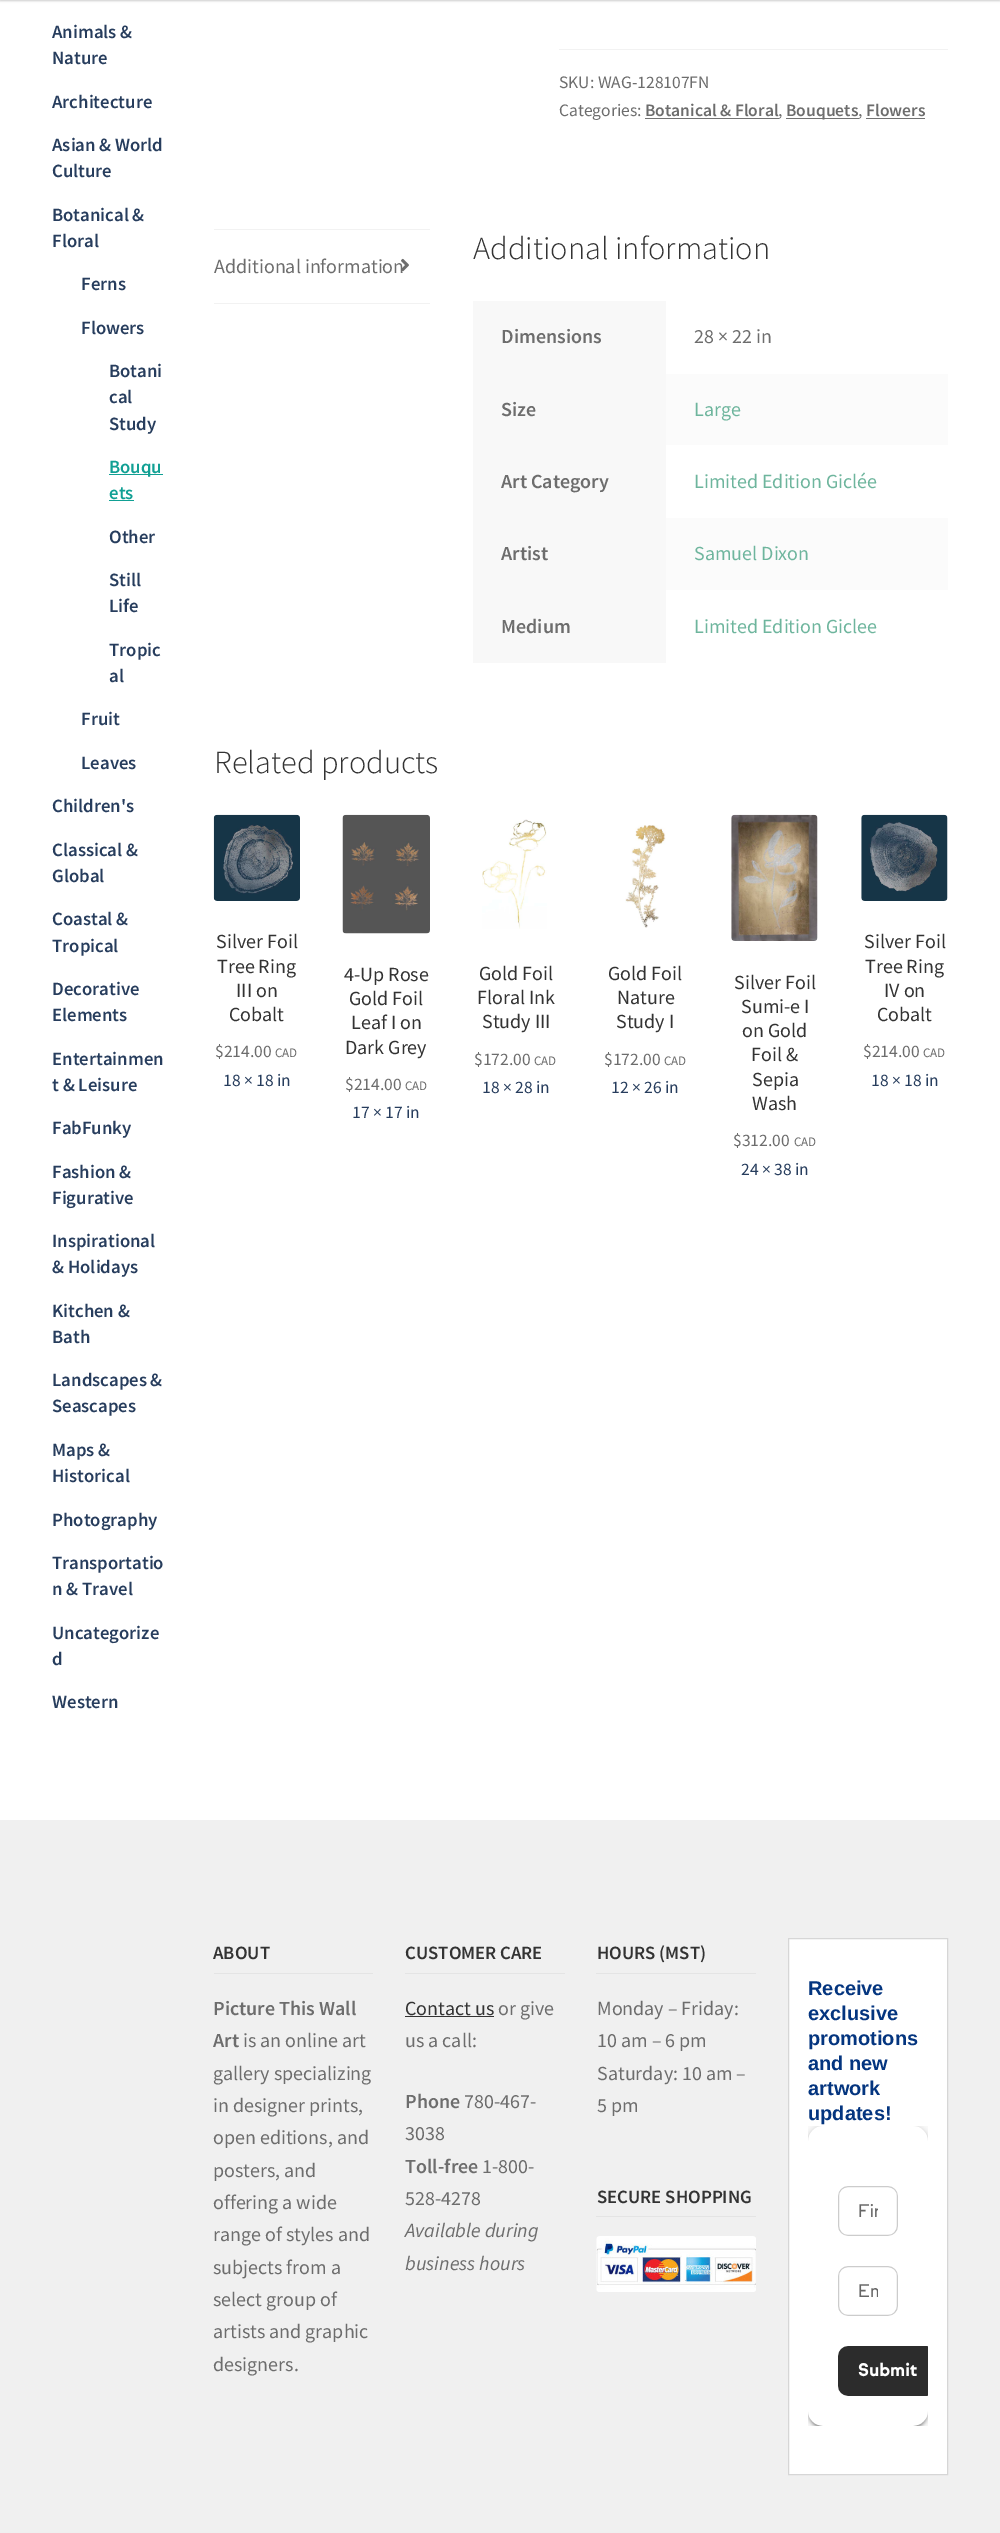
%!PS
<< /PageSize [1000 2533] /PageUsesTransparency true >> setpagedevice
/alpha { dup .setfillconstantalpha .setstrokeconstantalpha } def
/roundrect { 5 dict begin { /r /h /w /y /x } { exch def } forall
  x r add y moveto x w add y 2 copy h add r arct x w add y h add x 1 index r arct
  x y h add x y r arct x y 2 copy exch w add exch r arct closepath end } def
/shadow { 12 dict begin { /a /b /q /h /w /y /x } { exch def } forall gsave /was 0 def
  9 -2 -9 { dup b mul 4 div /e exch def 1 sub .425 mul 2.718 exch exp 1 add a .99 .min exch div /now exch def
    1 1 now sub 1 was sub div sub alpha /was now def
    w h .min e 2 mul add 0 gt { x e sub y e sub w e 2 mul add h e 2 mul add
      q e add b .6 mul add w h .min 2 div e add .min 0 .max roundrect fill } if } for grestore end } def
/picture { 5 dict begin { /h /w /y /x /name } { exch def } forall
  gsave x y translate w h scale
  w h 8 [w 0 0 h 0 0] name (r) file false 3 colorimage grestore end } def
0 .pushpdf14devicefilter
0 2533 translate 1 -1 scale
4 setmiterlimit
1 setgray
0 0 1000 2533 rectfill
0 setgray
0 -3 1000 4 0 1 0.2 shadow
/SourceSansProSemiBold-SemiBold [18.75 0 0 -18.75 0 0] selectfont
0.153 0.239 0.365 setrgbcolor
52 38 moveto (Animals &) show
52 64 moveto (Nature) show
52 108 moveto (Architecture) show
52 151 moveto (Asian & World) show
52 177 moveto (Culture) show
52 221 moveto (Botanical &) show
52 247 moveto (Floral) show
81 290 moveto (Ferns) show
81 334 moveto (Flowers) show
109 377 moveto (Botani) show
109 403 moveto (cal) show
109 430 moveto (Study) show
0.067 0.627 0.58 setrgbcolor
109 474 54 1 rectfill
109 473 moveto (Bouqu) show
109 499 moveto (ets) show
109 500 25 1 rectfill
0.153 0.239 0.365 setrgbcolor
109 543 moveto (Other) show
109 586 moveto (Still) show
109 612 moveto (Life) show
109 656 moveto (Tropic) show
109 682 moveto (al) show
81 725 moveto (Fruit) show
81 769 moveto (Leaves) show
52 812 moveto (Children's) show
52 856 moveto (Classical &) show
52 882 moveto (Global) show
52 925 moveto (Coastal &) show
52 952 moveto (Tropical) show
52 995 moveto (Decorative) show
52 1021 moveto (Elements) show
52 1065 moveto (Entertainmen) show
52 1091 moveto (t & Leisure) show
52 1134 moveto (FabFunky) show
52 1178 moveto (Fashion &) show
52 1204 moveto (Figurative) show
52 1247 moveto (Inspirational) show
52 1273 moveto (& Holidays) show
52 1317 moveto (Kitchen &) show
52 1343 moveto (Bath) show
52 1386 moveto (Landscapes &) show
52 1412 moveto (Seascapes) show
52 1456 moveto (Maps &) show
52 1482 moveto (Historical) show
52 1526 moveto (Photography) show
52 1569 moveto (Transportatio) show
52 1595 moveto (n & Travel) show
52 1639 moveto (Uncategorize) show
52 1665 moveto (d) show
52 1708 moveto (Western) show
0.949 setgray
559 49 389 1 rectfill
/SourceSansPro-Regular [17.5 0 0 -17.5 0 0] selectfont
0.427 setgray
559 88 moveto (SKU: WAG-128107FN) show
559 116 moveto (Categories:) show
/SourceSansProSemiBold-SemiBold [17.5 0 0 -17.5 0 0] selectfont
645 116 moveto (Botanical & Floral) show
0.447 setgray
645 118 134 1 rectfill
/SourceSansPro-Regular [17.5 0 0 -17.5 0 0] selectfont
0.427 setgray
778 116 moveto (,) show
0.447 setgray
786 118 73 1 rectfill
/SourceSansProSemiBold-SemiBold [17.5 0 0 -17.5 0 0] selectfont
0.427 setgray
786 116 moveto (Bouquets) show
/SourceSansPro-Regular [17.5 0 0 -17.5 0 0] selectfont
858 116 moveto (,) show
/SourceSansProSemiBold-SemiBold [17.5 0 0 -17.5 0 0] selectfont
866 116 moveto (Flowers) show
0.447 setgray
866 118 59 1 rectfill
0.949 setgray
214 229 216 1 rectfill
214 303 216 1 rectfill
/SourceSansPro-Regular [20 0 0 -20 0 0] selectfont
0.427 setgray
214 273 moveto (Additional information) show
(img1.rgb) 401 258 8 14 picture
/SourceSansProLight-Light [32.4 0 0 -32.4 0 0] selectfont
0.2 setgray
473 259 moveto (Additional information) show
0.973 setgray
473 301 193 362 rectfill
/SourceSansProSemiBold-SemiBold [20 0 0 -20 0 0] selectfont
0.427 setgray
501 343 moveto (Dimensions) show
/SourceSansPro-Regular [20 0 0 -20 0 0] selectfont
694 343 moveto (28 × 22 in) show
/SourceSansProSemiBold-SemiBold [20 0 0 -20 0 0] selectfont
501 416 moveto (Size) show
0.984 setgray
666 374 282 71 rectfill
/SourceSansPro-Regular [20 0 0 -20 0 0] selectfont
0.431 0.71 0.616 setrgbcolor
694 416 moveto (Large) show
/SourceSansProSemiBold-SemiBold [20 0 0 -20 0 0] selectfont
0.427 setgray
501 488 moveto (Art Category) show
/SourceSansPro-Regular [20 0 0 -20 0 0] selectfont
0.431 0.71 0.616 setrgbcolor
694 488 moveto (Limited Edition Giclée) show
/SourceSansProSemiBold-SemiBold [20 0 0 -20 0 0] selectfont
0.427 setgray
501 560 moveto (Artist) show
0.984 setgray
666 518 282 72 rectfill
/SourceSansPro-Regular [20 0 0 -20 0 0] selectfont
0.431 0.71 0.616 setrgbcolor
694 560 moveto (Samuel Dixon) show
/SourceSansProSemiBold-SemiBold [20 0 0 -20 0 0] selectfont
0.427 setgray
501 633 moveto (Medium) show
/SourceSansPro-Regular [20 0 0 -20 0 0] selectfont
0.431 0.71 0.616 setrgbcolor
694 633 moveto (Limited Edition Giclee) show
/SourceSansProLight-Light [32.4 0 0 -32.4 0 0] selectfont
0.2 setgray
214 773 moveto (Related products) show
(img2.rgb) 213 814 87 87 picture
/SourceSansPro-Regular [20 0 0 -20 0 0] selectfont
216 948 moveto (Silver Foil) show
217 973 moveto (Tree Ring) show
236 997 moveto (III on) show
229 1021 moveto (Cobalt) show
/SourceSansPro-Regular [17.5 0 0 -17.5 0 0] selectfont
0.427 setgray
215 1057 moveto ($214.00) show
/SourceSansPro-Regular [13 0 0 -13 0 0] selectfont
275 1057 moveto (CAD) show
/SourceSansPro-Regular [17.5 0 0 -17.5 0 0] selectfont
0.153 0.239 0.365 setrgbcolor
223 1086 moveto (18 × 18 in) show
(img3.rgb) 342 814 88 120 picture
/SourceSansPro-Regular [20 0 0 -20 0 0] selectfont
0.2 setgray
344 981 moveto (4-Up Rose) show
349 1005 moveto (Gold Foil) show
351 1029 moveto (Leaf I on) show
345 1054 moveto (Dark Grey) show
/SourceSansPro-Regular [17.5 0 0 -17.5 0 0] selectfont
0.427 setgray
345 1090 moveto ($214.00) show
/SourceSansPro-Regular [13 0 0 -13 0 0] selectfont
405 1090 moveto (CAD) show
/SourceSansPro-Regular [17.5 0 0 -17.5 0 0] selectfont
0.153 0.239 0.365 setrgbcolor
352 1118 moveto (17 × 17 in) show
(img4.rgb) 482 819 65 110 picture
/SourceSansPro-Regular [20 0 0 -20 0 0] selectfont
0.2 setgray
479 980 moveto (Gold Foil) show
477 1004 moveto (Floral Ink) show
482 1028 moveto (Study III) show
/SourceSansPro-Regular [17.5 0 0 -17.5 0 0] selectfont
0.427 setgray
474 1065 moveto ($172.00) show
/SourceSansPro-Regular [13 0 0 -13 0 0] selectfont
534 1065 moveto (CAD) show
/SourceSansPro-Regular [17.5 0 0 -17.5 0 0] selectfont
0.153 0.239 0.365 setrgbcolor
482 1093 moveto (18 × 28 in) show
(img5.rgb) 625 825 41 103 picture
/SourceSansPro-Regular [20 0 0 -20 0 0] selectfont
0.2 setgray
608 980 moveto (Gold Foil) show
617 1004 moveto (Nature) show
616 1028 moveto (Study I) show
/SourceSansPro-Regular [17.5 0 0 -17.5 0 0] selectfont
0.427 setgray
604 1065 moveto ($172.00) show
/SourceSansPro-Regular [13 0 0 -13 0 0] selectfont
664 1065 moveto (CAD) show
/SourceSansPro-Regular [17.5 0 0 -17.5 0 0] selectfont
0.153 0.239 0.365 setrgbcolor
611 1093 moveto (12 × 26 in) show
(img6.rgb) 731 814 87 127 picture
/SourceSansPro-Regular [20 0 0 -20 0 0] selectfont
0.2 setgray
734 989 moveto (Silver Foil) show
741 1013 moveto (Sumi-e I) show
742 1037 moveto (on Gold) show
751 1061 moveto (Foil &) show
752 1086 moveto (Sepia) show
752 1110 moveto (Wash) show
/SourceSansPro-Regular [17.5 0 0 -17.5 0 0] selectfont
0.427 setgray
733 1146 moveto ($312.00) show
/SourceSansPro-Regular [13 0 0 -13 0 0] selectfont
794 1146 moveto (CAD) show
/SourceSansPro-Regular [17.5 0 0 -17.5 0 0] selectfont
0.153 0.239 0.365 setrgbcolor
741 1175 moveto (24 × 38 in) show
(img7.rgb) 861 814 87 87 picture
/SourceSansPro-Regular [20 0 0 -20 0 0] selectfont
0.2 setgray
864 948 moveto (Silver Foil) show
865 973 moveto (Tree Ring) show
884 997 moveto (IV on) show
877 1021 moveto (Cobalt) show
/SourceSansPro-Regular [17.5 0 0 -17.5 0 0] selectfont
0.427 setgray
863 1057 moveto ($214.00) show
/SourceSansPro-Regular [13 0 0 -13 0 0] selectfont
923 1057 moveto (CAD) show
/SourceSansPro-Regular [17.5 0 0 -17.5 0 0] selectfont
0.153 0.239 0.365 setrgbcolor
871 1086 moveto (18 × 18 in) show
0.941 setgray
0 1820 1000 713 rectfill
0.894 setgray
214 1973 159 1 rectfill
/SourceSansProSemiBold-SemiBold [18.75 0 0 -18.75 0 0] selectfont
0.2 setgray
213 1959 moveto (ABOUT) show
/SourceSansProSemiBold-SemiBold [20 0 0 -20 0 0] selectfont
0.427 setgray
213 2015 moveto (Picture This Wall) show
213 2047 moveto (Art) show
/SourceSansPro-Regular [20 0 0 -20 0 0] selectfont
243 2047 moveto (is an online art) show
213 2080 moveto (gallery specializing) show
213 2112 moveto (in designer prints,) show
213 2144 moveto (open editions, and) show
213 2177 moveto (posters, and) show
213 2209 moveto (offering a wide) show
213 2241 moveto (range of styles and) show
213 2274 moveto (subjects from a) show
213 2306 moveto (select group of) show
213 2338 moveto (artists and graphic) show
213 2371 moveto (designers.) show
0.894 setgray
405 1973 160 1 rectfill
/SourceSansProSemiBold-SemiBold [18.75 0 0 -18.75 0 0] selectfont
0.2 setgray
405 1959 moveto (CUSTOMER CARE) show
/SourceSansPro-Regular [20 0 0 -20 0 0] selectfont
405 2015 moveto (Contact us) show
405 2016 89 1 rectfill
0.427 setgray
498 2015 moveto (or give) show
405 2047 moveto (us a call:) show
/SourceSansProSemiBold-SemiBold [20 0 0 -20 0 0] selectfont
405 2108 moveto (Phone) show
/SourceSansPro-Regular [20 0 0 -20 0 0] selectfont
464 2108 moveto (780-467-) show
405 2140 moveto (3038) show
/SourceSansProSemiBold-SemiBold [20 0 0 -20 0 0] selectfont
405 2173 moveto (Toll-free) show
/SourceSansPro-Regular [20 0 0 -20 0 0] selectfont
482 2173 moveto (1-800-) show
405 2205 moveto (528-4278) show
/SourceSansPro-Italic [20 0 0 -20 0 0] selectfont
405 2237 moveto (Available during) show
405 2270 moveto (business hours) show
0.894 setgray
596 1973 160 1 rectfill
/SourceSansProSemiBold-SemiBold [18.75 0 0 -18.75 0 0] selectfont
0.2 setgray
597 1959 moveto (HOURS \(MST\)) show
/SourceSansPro-Regular [20 0 0 -20 0 0] selectfont
0.427 setgray
597 2015 moveto (Monday – Friday:) show
597 2047 moveto (10 am – 6 pm) show
597 2080 moveto (Saturday: 10 am –) show
597 2112 moveto (5 pm) show
0.894 setgray
596 2216 160 1 rectfill
/SourceSansProSemiBold-SemiBold [18.75 0 0 -18.75 0 0] selectfont
0.2 setgray
597 2203 moveto (SECURE SHOPPING) show
(img8.rgb) 596 2236 160 56 picture
1 setgray
newpath 788.5 1938.5 moveto 947.5 1938.5 lineto 947.5 2474.5 lineto 788.5 2474.5 lineto closepath gsave fill grestore
0.839 setgray
stroke
/LiberationSans-Bold [20 0 0 -20 0 0] selectfont
0.016 0.208 0.498 setrgbcolor
808 1995 moveto (Receive) show
808 2020 moveto (exclusive) show
808 2045 moveto (promotions) show
808 2070 moveto (and new) show
808 2095 moveto (artwork) show
808 2120 moveto (updates!) show
(img9.rgb) 808 2126 120 300 picture
.poppdf14devicefilter showpage
